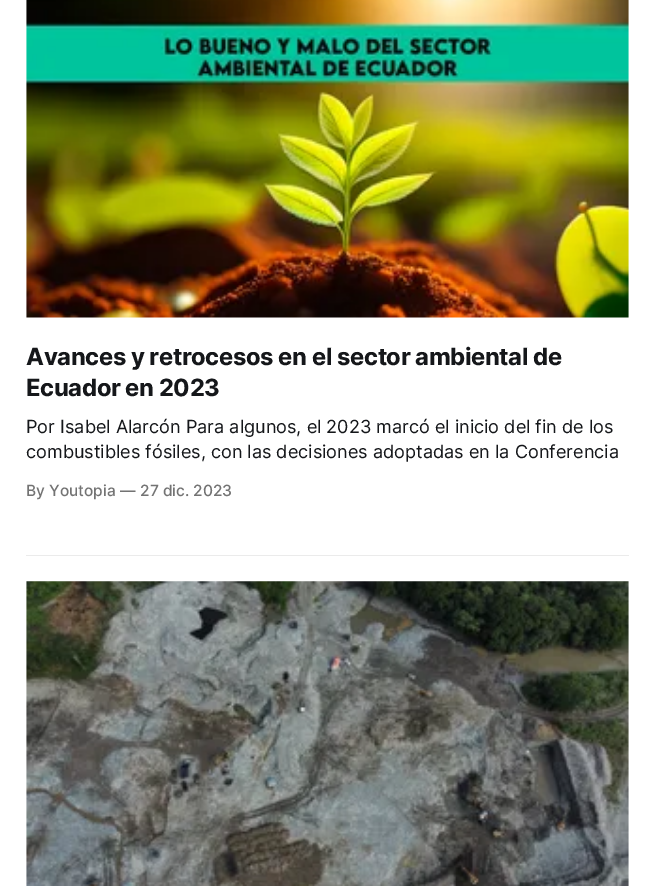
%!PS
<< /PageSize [654 886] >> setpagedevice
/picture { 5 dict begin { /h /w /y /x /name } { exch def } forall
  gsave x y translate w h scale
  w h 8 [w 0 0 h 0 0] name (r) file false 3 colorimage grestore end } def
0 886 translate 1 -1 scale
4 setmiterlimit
1 setgray
0 0 654 886 rectfill
(img1.rgb) 26 0 603 318 picture
/Inter-Bold [23.75 0 0 -23.75 0 0] selectfont
0.082 0.09 0.102 setrgbcolor
26 365 moveto -0.35 0 (Avances y retrocesos en el sector ambiental de) ashow
26 396 moveto -0.35 0 (Ecuador en 2023) ashow
/Inter-Regular [18.1 0 0 -18.1 0 0] selectfont
26 433 moveto (Por Isabel Alarcón Para algunos, el 2023 marcó el inicio del fin de los) show
26 458 moveto (combustibles fósiles, con las decisiones adoptadas en la Conferencia) show
/Inter-Medium [15.5 0 0 -15.5 0 0] selectfont
0.451 setgray
26 496 moveto (By Youtopia —) show
140 496 moveto (27 dic. 2023) show
0.922 setgray
26 555 603 1 rectfill
(img2.rgb) 26 581 603 305 picture
showpage
